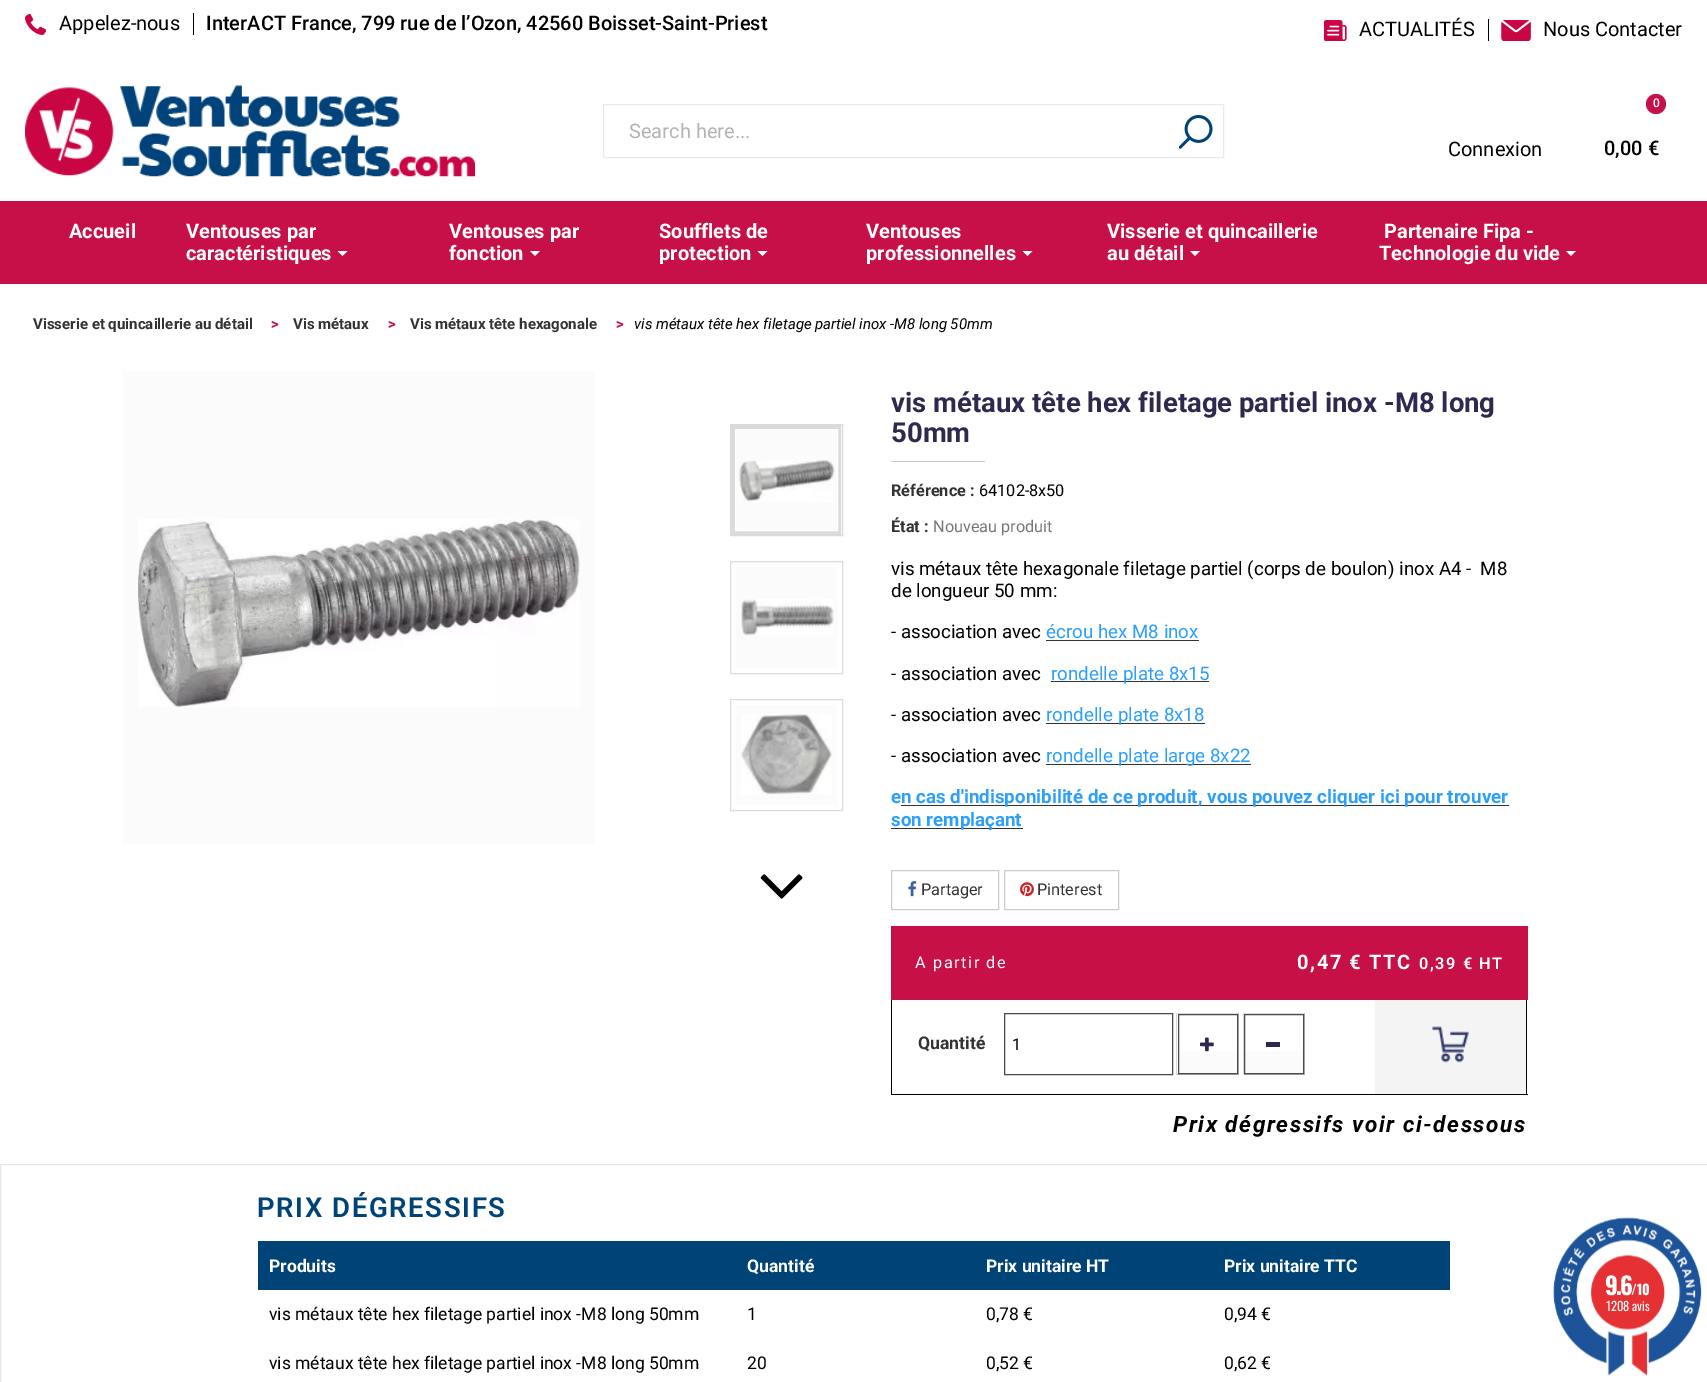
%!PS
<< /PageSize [1707 1382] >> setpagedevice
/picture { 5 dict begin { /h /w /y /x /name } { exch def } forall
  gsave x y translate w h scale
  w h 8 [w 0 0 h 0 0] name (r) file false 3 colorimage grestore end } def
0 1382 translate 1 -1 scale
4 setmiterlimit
1 setgray
0 0 1707 1382 rectfill
0 setgray
193 13 1 22 rectfill
(img1.rgb) 25 14 21 21 picture
/Roboto-Regular [20 0 0 -20 0 0] selectfont
59 30 moveto (Appelez-nous) show
/Roboto-Medium [20 0 0 -20 0 0] selectfont
206 30 moveto (InterACT France, 799 rue de l’Ozon, 42560 Boisset-Saint-Priest) show
1488 19 1 22 rectfill
(img2.rgb) 1324 20 23 21 picture
/Roboto-Regular [20 0 0 -20 0 0] selectfont
1359 36 moveto (ACTUALITÉS) show
(img3.rgb) 1501 20 30 21 picture
1543 36 moveto (Nous Contacter) show
(img4.rgb) 25 85 450 92 picture
0.918 setgray
603.5 104.5 620 53 rectstroke
0.702 setgray
629 138 moveto (Search here...) show
(img5.rgb) 1179 115 34 34 picture
0 setgray
1448 156 moveto (Connexion) show
0.776 0.063 0.278 setrgbcolor
newpath 1656 104 10 0 360 arc closepath fill
/Roboto-Medium [12 0 0 -12 0 0] selectfont
1 setgray
1653 107 moveto (0) show
/Roboto-Medium [20 0 0 -20 0 0] selectfont
0 setgray
1604 155 moveto (0,00 €) show
0.776 0.063 0.278 setrgbcolor
0 201 1707 83 rectfill
/Roboto-Bold [20 0 0 -20 0 0] selectfont
1 setgray
69 238 moveto (Accueil) show
186 238 moveto (Ventouses par) show
186 260 moveto (caractéristiques) show
newpath 337.5 251 moveto 347.5 251 lineto 342.5 256 lineto closepath fill
449 238 moveto (Ventouses par) show
449 260 moveto (fonction) show
newpath 530 251 moveto 540 251 lineto 535 256 lineto closepath fill
659 238 moveto (Soufflets de) show
659 260 moveto (protection) show
newpath 757.5 251 moveto 767.5 251 lineto 762.5 256 lineto closepath fill
866 238 moveto (Ventouses) show
866 260 moveto (professionnelles) show
newpath 1022.5 251 moveto 1032.5 251 lineto 1027.5 256 lineto closepath fill
1107 238 moveto (Visserie et quincaillerie) show
1107 260 moveto (au détail) show
newpath 1190 251 moveto 1200 251 lineto 1195 256 lineto closepath fill
1384 238 moveto (Partenaire Fipa -) show
1379 260 moveto (Technologie du vide) show
newpath 1566 251 moveto 1576 251 lineto 1571 256 lineto closepath fill
/Roboto-Bold [15 0 0 -15 0 0] selectfont
0.2 setgray
33 329 moveto (Visserie et quincaillerie au détail) show
0.776 0.063 0.278 setrgbcolor
271 329 moveto (>) show
0.2 setgray
293 329 moveto (Vis métaux) show
0.776 0.063 0.278 setrgbcolor
388 329 moveto (>) show
0.2 setgray
410 329 moveto (Vis métaux tête hexagonale) show
0.776 0.063 0.278 setrgbcolor
616 329 moveto (>) show
/Roboto-Italic [15 0 0 -15 0 0] selectfont
0 setgray
634 329 moveto (vis métaux tête hex filetage partiel inox -M8 long 50mm) show
0.984 setgray
123 371 472 473 rectfill
(img6.rgb) 138 519 442 188 picture
0.859 setgray
730.5 424.5 112 111 rectstroke
0.984 setgray
736 430 101 100 rectfill
0.859 setgray
4 setlinewidth
733 427 106 106 rectstroke
1 setgray
1 setlinewidth
735.5 429.5 102 101 rectstroke
(img7.rgb) 738 460 97 42 picture
0.859 setgray
730.5 561.5 112 112 rectstroke
0.984 setgray
736 567 101 101 rectfill
(img8.rgb) 741 599 93 37 picture
0.859 setgray
730.5 699.5 112 111 rectstroke
0.984 setgray
736 705 101 100 rectfill
(img9.rgb) 741 714 91 81 picture
(img10.rgb) 760 874 43 25 picture
/Roboto-Bold [27.5 0 0 -27.5 0 0] selectfont
0.184 0.161 0.31 setrgbcolor
891 412 moveto (vis métaux tête hex filetage partiel inox -M8 long) show
891 442 moveto (50mm) show
0.8 setgray
891 461 94 1 rectfill
/Roboto-Bold [16.25 0 0 -16.25 0 0] selectfont
0.2 setgray
891 496 moveto (Référence :) show
/Roboto-Regular [16.25 0 0 -16.25 0 0] selectfont
0 setgray
979 496 moveto (64102-8x50) show
/Roboto-Bold [16.25 0 0 -16.25 0 0] selectfont
0.2 setgray
891 532 moveto (État :) show
/Roboto-Regular [16.25 0 0 -16.25 0 0] selectfont
0.467 setgray
933 532 moveto (Nouveau produit) show
/Roboto-Regular [18.75 0 0 -18.75 0 0] selectfont
0 setgray
891 575 moveto (vis métaux tête hexagonale filetage partiel \(corps de boulon\) inox A4 -  M8) show
891 597 moveto (de longueur 50 mm:) show
891 638 moveto (- association avec) show
0.173 0.624 0.992 setrgbcolor
1046 638 moveto (écrou hex M8 inox) show
0.2 setgray
1046 640 153 1 rectfill
0 setgray
891 680 moveto (- association avec) show
0.2 setgray
1051 681 158 1 rectfill
0.173 0.624 0.992 setrgbcolor
1051 680 moveto (rondelle plate 8x15) show
0 setgray
891 721 moveto (- association avec) show
0.2 setgray
1046 723 159 1 rectfill
0.173 0.624 0.992 setrgbcolor
1046 721 moveto (rondelle plate 8x18) show
0 setgray
891 762 moveto (- association avec) show
0.2 setgray
1046 764 205 1 rectfill
0.173 0.624 0.992 setrgbcolor
1046 762 moveto (rondelle plate large 8x22) show
/Roboto-Bold [18.75 0 0 -18.75 0 0] selectfont
891 803 moveto (e) show
0.2 setgray
901 805 608 1 rectfill
0.173 0.624 0.992 setrgbcolor
901 803 moveto (n cas d'indisponibilité de ce produit, vous pouvez cliquer ici pour trouver) show
0.2 setgray
891 828 132 1 rectfill
0.173 0.624 0.992 setrgbcolor
891 826 moveto (son remplaçant) show
0.8 setgray
891.5 870.5 107 39 rectstroke
(img11.rgb) 908 881 9 16 picture
/Roboto-Regular [16.25 0 0 -16.25 0 0] selectfont
0.2 setgray
921 895 moveto (Partager) show
0.8 setgray
1004.5 870.5 114 39 rectstroke
(img12.rgb) 1020 882 14 15 picture
0.2 setgray
1037 895 moveto (Pinterest) show
0.776 0.063 0.275 setrgbcolor
891 926 637 74 rectfill
1 setgray
915 968 moveto 1.6 0 (A partir de) ashow
/Roboto-Bold [20 0 0 -20 0 0] selectfont
1297 969 moveto 1.6 0 (0,47 € TTC) ashow
/Roboto-SemiBold [16.25 0 0 -16.25 0 0] selectfont
1419 969 moveto 1.6 0 (0,39 € HT) ashow
0 setgray
1526 1000 1 95 rectfill
891 1094 637 1 rectfill
891 1000 1 95 rectfill
/Roboto-Bold [17.5 0 0 -17.5 0 0] selectfont
0.2 setgray
918 1049 moveto (Quantité) show
0.29 setgray
1004.5 1013.5 168 61 rectstroke
/Roboto-Regular [16.25 0 0 -16.25 0 0] selectfont
0 setgray
1012 1050 moveto (1) show
0.871 0.863 0.863 setrgbcolor
1176 1013 63 1 rectfill
0.757 0.749 0.749 setrgbcolor
1238 1013 1 62 rectfill
0.71 0.706 0.706 setrgbcolor
1176 1074 63 1 rectfill
0.855 0.847 0.847 setrgbcolor
1176 1013 1 62 rectfill
gsave newpath 1179 1051 moveto 1237 1051 lineto 1237 1073 lineto 1179 1073 lineto closepath clip newpath
<< /ShadingType 2 /ColorSpace /DeviceRGB /Coords [1208 1015 1208 1073] /Extend [true true] /Function << /FunctionType 2 /Domain [0 1] /C0 [1 1 1] /C1 [0.984 0.984 0.984] /N 1 >> >> shfill grestore
0.29 setgray
1178.5 1014.5 59 59 rectstroke
(img13.rgb) 1200 1037 14 15 picture
0.871 0.863 0.863 setrgbcolor
1243 1013 62 1 rectfill
0.757 0.749 0.749 setrgbcolor
1304 1013 1 62 rectfill
0.71 0.706 0.706 setrgbcolor
1243 1074 62 1 rectfill
0.855 0.847 0.847 setrgbcolor
1243 1013 1 62 rectfill
gsave newpath 1245 1051 moveto 1303 1051 lineto 1303 1073 lineto 1245 1073 lineto closepath clip newpath
<< /ShadingType 2 /ColorSpace /DeviceRGB /Coords [1274 1015 1274 1073] /Extend [true true] /Function << /FunctionType 2 /Domain [0 1] /C0 [1 1 1] /C1 [0.984 0.984 0.984] /N 1 >> >> shfill grestore
0.29 setgray
1244.5 1014.5 59 59 rectstroke
0.184 0.157 0.318 setrgbcolor
1266 1042 14 5 rectfill
0.957 setgray
1375 1000 151 94 rectfill
(img14.rgb) 1432 1026 37 37 picture
/Roboto-BoldItalic [22.5 0 0 -22.5 0 0] selectfont
0 setgray
1173 1132 moveto 1.6 0 (Prix dégressifs voir ci-dessous) ashow
0.902 setgray
0.5 1164.5 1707 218 rectstroke
/Roboto-SemiBold [27.5 0 0 -27.5 0 0] selectfont
0 0.263 0.467 setrgbcolor
257 1217 moveto 1.6 0 (PRIX DÉGRESSIFS) ashow
258 1241 1192 49 rectfill
/Roboto-Bold [17.5 0 0 -17.5 0 0] selectfont
1 setgray
269 1272 moveto (Produits) show
747 1272 moveto (Quantité) show
986 1272 moveto (Prix unitaire HT) show
1224 1272 moveto (Prix unitaire TTC) show
/Roboto-Regular [17.5 0 0 -17.5 0 0] selectfont
0 setgray
269 1320 moveto (vis métaux tête hex filetage partiel inox -M8 long 50mm) show
747 1320 moveto (1) show
986 1320 moveto (0,78 €) show
1224 1320 moveto (0,94 €) show
269 1369 moveto (vis métaux tête hex filetage partiel inox -M8 long 50mm) show
747 1369 moveto (20) show
986 1369 moveto (0,52 €) show
1224 1369 moveto (0,62 €) show
(img15.rgb) 1553 1217 149 159 picture
/Oswald-Bold [24 0 0 -24 0 0] selectfont
1 setgray
1605 1295 moveto -2 0 (9.6) ashow
/Oswald-Bold [14 0 0 -14 0 0] selectfont
1631 1295 moveto (/10) show
/Oswald-Regular [12.5 0 0 -12.5 0 0] selectfont
1606 1311 moveto (1208 avis) show
showpage
